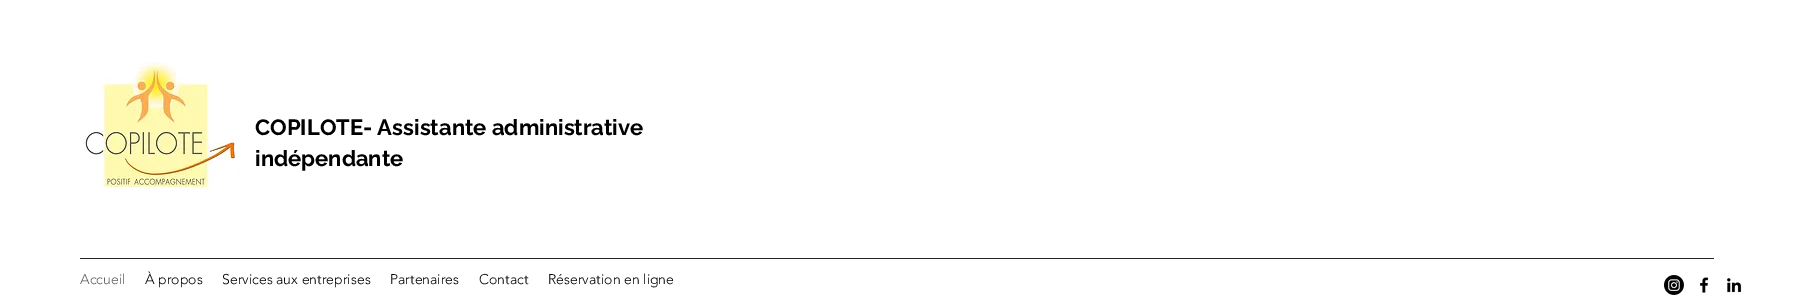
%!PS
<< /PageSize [1794 303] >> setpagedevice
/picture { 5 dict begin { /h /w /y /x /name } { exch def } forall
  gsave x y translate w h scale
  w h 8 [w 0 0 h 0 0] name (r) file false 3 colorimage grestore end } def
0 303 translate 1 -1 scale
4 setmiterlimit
1 setgray
0 0 1794 303 rectfill
(img1.rgb) 84 62 156 127 picture
/Raleway-Bold [22 0 0 -22 0 0] selectfont
0 setgray
255 135 moveto (COPILOTE- Assistante administrative) show
255 166 moveto (indépendante) show
0.149 setgray
80 258 1634 1 rectfill
/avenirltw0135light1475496-Light [14 0 0 -14 0 0] selectfont
0.392 0.373 0.369 setrgbcolor
80 284 moveto (Accueil) show
0 setgray
145 284 moveto (À propos) show
222 284 moveto (Services aux entreprises) show
390 284 moveto (Partenaires) show
479 284 moveto (Contact) show
548 284 moveto (Réservation en ligne) show
(img2.rgb) 1664 275 20 20 picture
(img3.rgb) 1700 277 9 16 picture
(img4.rgb) 1727 278 15 15 picture
showpage
